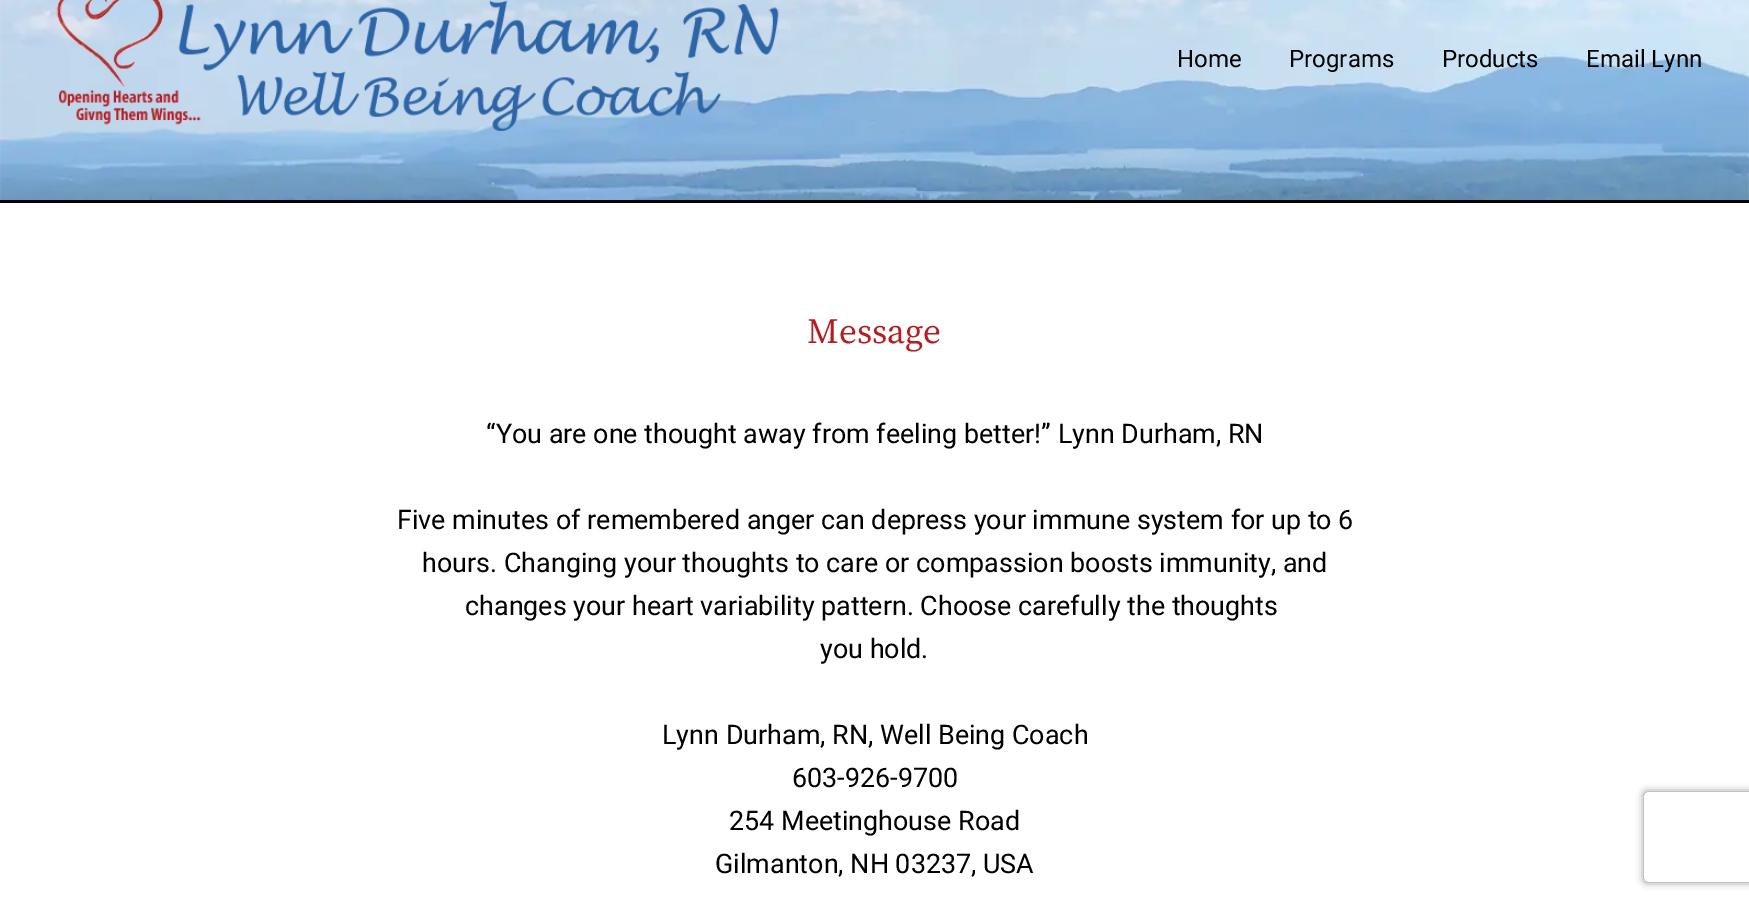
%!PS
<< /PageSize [1749 902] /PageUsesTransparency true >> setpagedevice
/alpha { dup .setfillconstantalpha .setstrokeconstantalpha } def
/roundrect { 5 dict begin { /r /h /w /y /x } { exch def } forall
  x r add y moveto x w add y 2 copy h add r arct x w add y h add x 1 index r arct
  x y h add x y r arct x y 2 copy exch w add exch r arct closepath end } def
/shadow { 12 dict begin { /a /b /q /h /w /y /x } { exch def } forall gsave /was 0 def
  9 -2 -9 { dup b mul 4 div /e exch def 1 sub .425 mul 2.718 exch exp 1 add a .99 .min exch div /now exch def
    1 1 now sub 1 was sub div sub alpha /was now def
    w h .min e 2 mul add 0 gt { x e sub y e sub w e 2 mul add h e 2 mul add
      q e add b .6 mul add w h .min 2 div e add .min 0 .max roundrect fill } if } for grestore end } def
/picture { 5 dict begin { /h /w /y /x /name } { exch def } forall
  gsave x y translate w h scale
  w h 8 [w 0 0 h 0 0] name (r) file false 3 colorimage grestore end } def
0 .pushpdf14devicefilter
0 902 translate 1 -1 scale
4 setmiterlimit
1 setgray
0 0 1749 902 rectfill
(img1.rgb) 0 0 1749 200 picture
0 setgray
0 200 1749 3 rectfill
(img2.rgb) 56 0 723 131 picture
/Roboto-Regular [24 0 0 -24 0 0] selectfont
1177 67 moveto (Home) show
1289 67 moveto (Programs) show
1442 67 moveto (Products) show
1586 67 moveto (Email Lynn) show
/SourceSerif4-Regular [35.5 0 0 -35.5 0 0] selectfont
0.706 0.114 0.133 setrgbcolor
807 343 moveto (Message) show
/Roboto-Regular [26.9 0 0 -26.9 0 0] selectfont
0 setgray
486 443 moveto (“You are one thought away from feeling better!” Lynn Durham, RN) show
397 529 moveto (Five minutes of remembered anger can depress your immune system for up to 6) show
422 572 moveto (hours. Changing your thoughts to care or compassion boosts immunity, and) show
465 615 moveto (changes your heart variability pattern. Choose carefully the thoughts) show
820 658 moveto (you hold.) show
662 744 moveto (Lynn Durham, RN, Well Being Coach) show
792 787 moveto (603-926-9700) show
729 830 moveto (254 Meetinghouse Road) show
715 873 moveto (Gilmanton, NH 03237, USA) show
gsave
newpath 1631 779 moveto 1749 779 lineto 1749 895 lineto 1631 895 lineto closepath 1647 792 moveto 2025 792 lineto 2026.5 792 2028 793.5 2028 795 curveto 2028 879 lineto 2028 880.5 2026.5 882 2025 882 curveto 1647 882 lineto 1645.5 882 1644 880.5 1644 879 curveto 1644 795 lineto 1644 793.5 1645.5 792 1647 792 curveto closepath eoclip newpath
0.502 setgray
1644 792 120 90 3 4 1 shadow
grestore
.poppdf14devicefilter showpage
